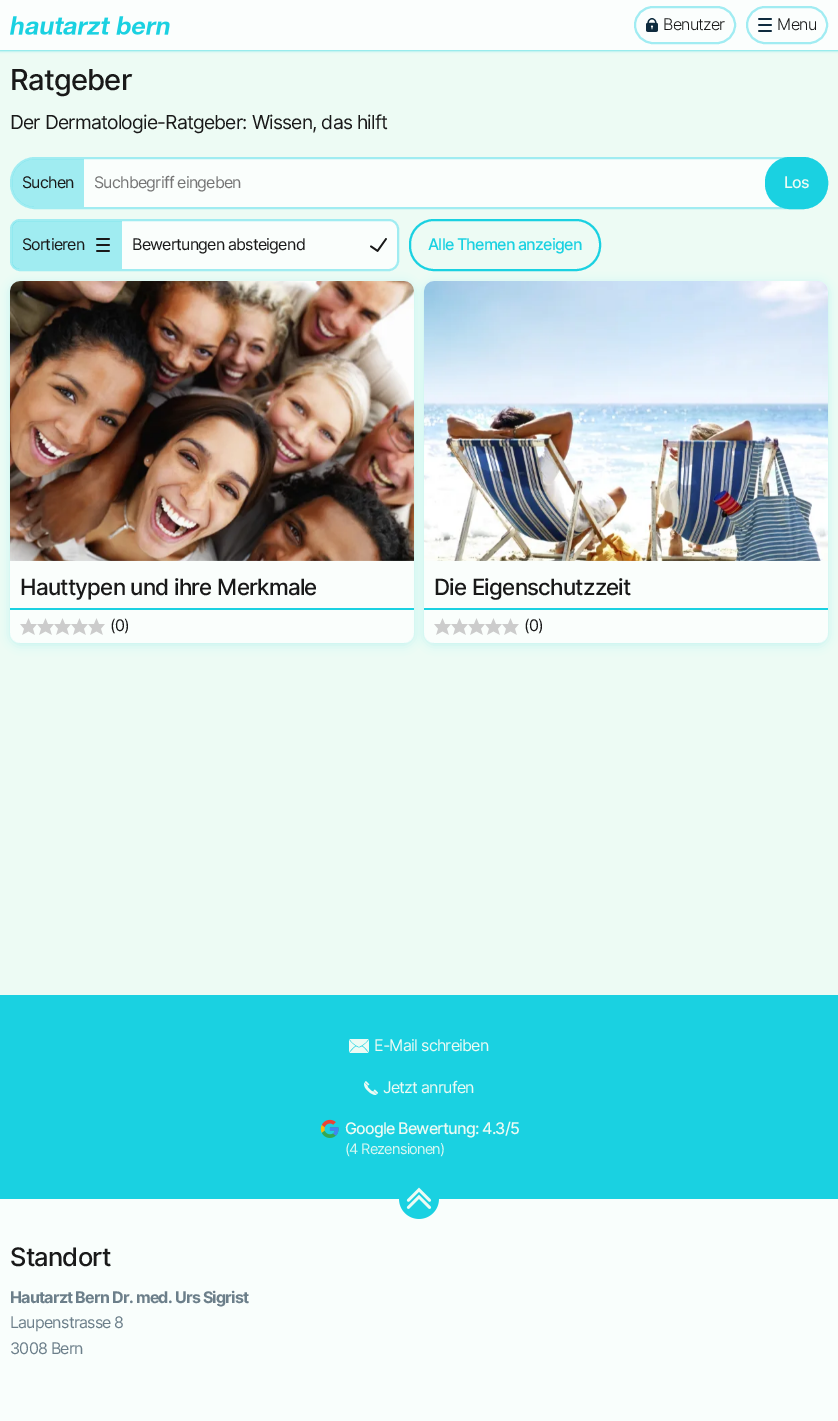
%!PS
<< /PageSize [838 1421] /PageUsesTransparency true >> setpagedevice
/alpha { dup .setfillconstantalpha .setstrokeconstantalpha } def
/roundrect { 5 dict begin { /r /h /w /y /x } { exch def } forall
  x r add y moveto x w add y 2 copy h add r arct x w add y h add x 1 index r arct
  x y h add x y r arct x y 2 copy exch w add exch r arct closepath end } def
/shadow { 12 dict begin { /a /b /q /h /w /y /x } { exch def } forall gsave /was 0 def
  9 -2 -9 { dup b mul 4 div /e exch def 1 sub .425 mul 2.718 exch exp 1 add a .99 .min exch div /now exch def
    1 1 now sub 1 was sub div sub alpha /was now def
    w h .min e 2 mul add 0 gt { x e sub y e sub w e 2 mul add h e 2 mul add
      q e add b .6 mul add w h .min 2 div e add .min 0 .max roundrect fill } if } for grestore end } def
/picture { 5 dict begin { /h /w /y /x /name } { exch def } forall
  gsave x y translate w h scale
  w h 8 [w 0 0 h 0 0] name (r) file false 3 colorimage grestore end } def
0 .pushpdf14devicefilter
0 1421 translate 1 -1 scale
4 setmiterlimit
0.929 0.984 0.957 setrgbcolor
0 0 838 1421 rectfill
0.102 0.82 0.882 setrgbcolor
0 0 838 50 0 1.5 1 shadow
0.984 0.996 0.992 setrgbcolor
0 0 838 50 rectfill
(img1.rgb) 10 16 160 19 picture
0.631 0.925 0.949 setrgbcolor
2 setlinewidth
635 7 100 36 18 roundrect stroke
(img2.rgb) 646 18 12 14 picture
/Inter-Light [16 0 0 -16 0 0] selectfont
0.098 setgray
663 30 moveto -0.8 0 (Benutzer) ashow
0.631 0.925 0.949 setrgbcolor
747 7 80 36 18 roundrect stroke
(img3.rgb) 758 18 14 14 picture
0.098 setgray
777 30 moveto -0.8 0 (Menu) ashow
/Inter-Medium [29 0 0 -29 0 0] selectfont
10 90 moveto -0.8 0 (Ratgeber) ashow
/Inter-Regular [19.25 0 0 -19.25 0 0] selectfont
10 129 moveto -0.8 0 (Der Dermatologie-Ratgeber: Wissen, das hilft) ashow
0.98 0.996 0.988 setrgbcolor
10 157 818 52 25 roundrect fill
0.4 alpha
0.102 0.82 0.882 setrgbcolor
11 158 816 50 24 roundrect stroke
newpath 35 159 moveto 84 159 lineto 84 207 lineto 35 207 lineto 22.5 207 12 196.5 12 184 curveto 12 182 lineto 12 169.5 22.5 159 35 159 curveto closepath fill
/Inter-Regular [16 0 0 -16 0 0] selectfont
1 alpha
0.098 setgray
22 188 moveto -0.8 0 (Suchen) ashow
0.459 setgray
94 188 moveto -0.8 0 (Suchbegriff eingeben) ashow
0.102 0.82 0.882 setrgbcolor
766 158 61 50 24 roundrect gsave fill grestore
stroke
/Inter-Medium [16 0 0 -16 0 0] selectfont
0.929 0.984 0.957 setrgbcolor
784 188 moveto -0.8 0 (Los) ashow
0.98 0.996 0.988 setrgbcolor
10 219 389 52 10 roundrect fill
0.4 alpha
0.102 0.82 0.882 setrgbcolor
11 220 387 50 9 roundrect stroke
newpath 20 221 moveto 122 221 lineto 122 269 lineto 20 269 lineto 15.5 269 12 265.5 12 261 curveto 12 229 lineto 12 224.5 15.5 221 20 221 curveto closepath fill
/Inter-Regular [16 0 0 -16 0 0] selectfont
1 alpha
0.098 setgray
22 250 moveto -0.8 0 (Sortieren) ashow
(img4.rgb) 96 238 14 14 picture
132 250 moveto -0.8 0 (Bewertungen absteigend) ashow
(img5.rgb) 370 238 17 14 picture
0.102 0.82 0.882 setrgbcolor
410 220 190 50 24 roundrect stroke
/Inter-Medium [16 0 0 -16 0 0] selectfont
428 250 moveto -0.8 0 (Alle Themen anzeigen) ashow
gsave
newpath 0 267 moveto 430 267 lineto 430 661 lineto 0 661 lineto closepath 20 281 moveto 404 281 lineto 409.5 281 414 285.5 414 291 curveto 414 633 lineto 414 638.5 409.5 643 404 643 curveto 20 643 lineto 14.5 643 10 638.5 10 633 curveto 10 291 lineto 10 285.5 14.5 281 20 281 curveto closepath eoclip newpath
10 283 404 362 10 5 0.2 shadow
grestore
0.7 alpha
1 setgray
10 281 404 362 10 roundrect fill
0.1 alpha
0.102 0.82 0.882 setrgbcolor
newpath 20 281 moveto 404 281 lineto 409.5 281 414 285.5 414 291 curveto 414 561 lineto 10 561 lineto 10 291 lineto 10 285.5 14.5 281 20 281 curveto closepath fill
1 alpha
(img6.rgb) 10 281 404 280 picture
/Inter-Medium [22.4 0 0 -22.4 0 0] selectfont
0.098 setgray
20 595 moveto -0.8 0 (Hauttypen und ihre Merkmale) ashow
0.102 0.82 0.882 setrgbcolor
10 608 404 2 rectfill
(img7.rgb) 20 618 85 17 picture
/Inter-Regular [16 0 0 -16 0 0] selectfont
0.098 setgray
110 631 moveto -0.8 0 (\(0\)) ashow
gsave
newpath 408 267 moveto 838 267 lineto 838 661 lineto 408 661 lineto closepath 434 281 moveto 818 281 lineto 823.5 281 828 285.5 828 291 curveto 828 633 lineto 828 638.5 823.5 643 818 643 curveto 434 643 lineto 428.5 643 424 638.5 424 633 curveto 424 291 lineto 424 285.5 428.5 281 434 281 curveto closepath eoclip newpath
0.102 0.82 0.882 setrgbcolor
424 283 404 362 10 5 0.2 shadow
grestore
0.7 alpha
1 setgray
424 281 404 362 10 roundrect fill
0.1 alpha
0.102 0.82 0.882 setrgbcolor
newpath 434 281 moveto 818 281 lineto 823.5 281 828 285.5 828 291 curveto 828 561 lineto 424 561 lineto 424 291 lineto 424 285.5 428.5 281 434 281 curveto closepath fill
1 alpha
(img8.rgb) 424 281 404 280 picture
/Inter-Medium [22.4 0 0 -22.4 0 0] selectfont
0.098 setgray
434 595 moveto -0.8 0 (Die Eigenschutzzeit) ashow
0.102 0.82 0.882 setrgbcolor
424 608 404 2 rectfill
(img7.rgb) 434 618 85 17 picture
/Inter-Regular [16 0 0 -16 0 0] selectfont
0.098 setgray
524 631 moveto -0.8 0 (\(0\)) ashow
0.102 0.82 0.882 setrgbcolor
0 995 838 204 rectfill
(img9.rgb) 349 1039 20 14 picture
0.929 0.984 0.957 setrgbcolor
374 1051 moveto -0.8 0 (E-Mail schreiben) ashow
(img10.rgb) 364 1081 14 14 picture
383 1093 moveto -0.8 0 (Jetzt anrufen) ashow
(img11.rgb) 320 1119 19 19 picture
/Inter-Medium [16 0 0 -16 0 0] selectfont
345 1134 moveto -0.8 0 (Google Bewertung: 4.3/5) ashow
/Inter-Regular [14.5 0 0 -14.5 0 0] selectfont
0.847 0.969 0.949 setrgbcolor
345 1154 moveto -0.8 0 (\(4 Rezensionen\)) ashow
0.976 0.996 0.988 setrgbcolor
0 1199 838 222 rectfill
(img12.rgb) 399 1187 40 32 picture
/Inter-Medium [25.5 0 0 -25.5 0 0] selectfont
0.098 setgray
10 1266 moveto -0.8 0 (Standort) ashow
/Inter-Bold [16 0 0 -16 0 0] selectfont
0.424 0.498 0.541 setrgbcolor
10 1303 moveto -0.8 0 (Hautarzt Bern Dr. med. Urs Sigrist) ashow
/Inter-Regular [16 0 0 -16 0 0] selectfont
10 1328 moveto -0.8 0 (Laupenstrasse 8) ashow
10 1354 moveto -0.8 0 (3008 Bern) ashow
.poppdf14devicefilter showpage
